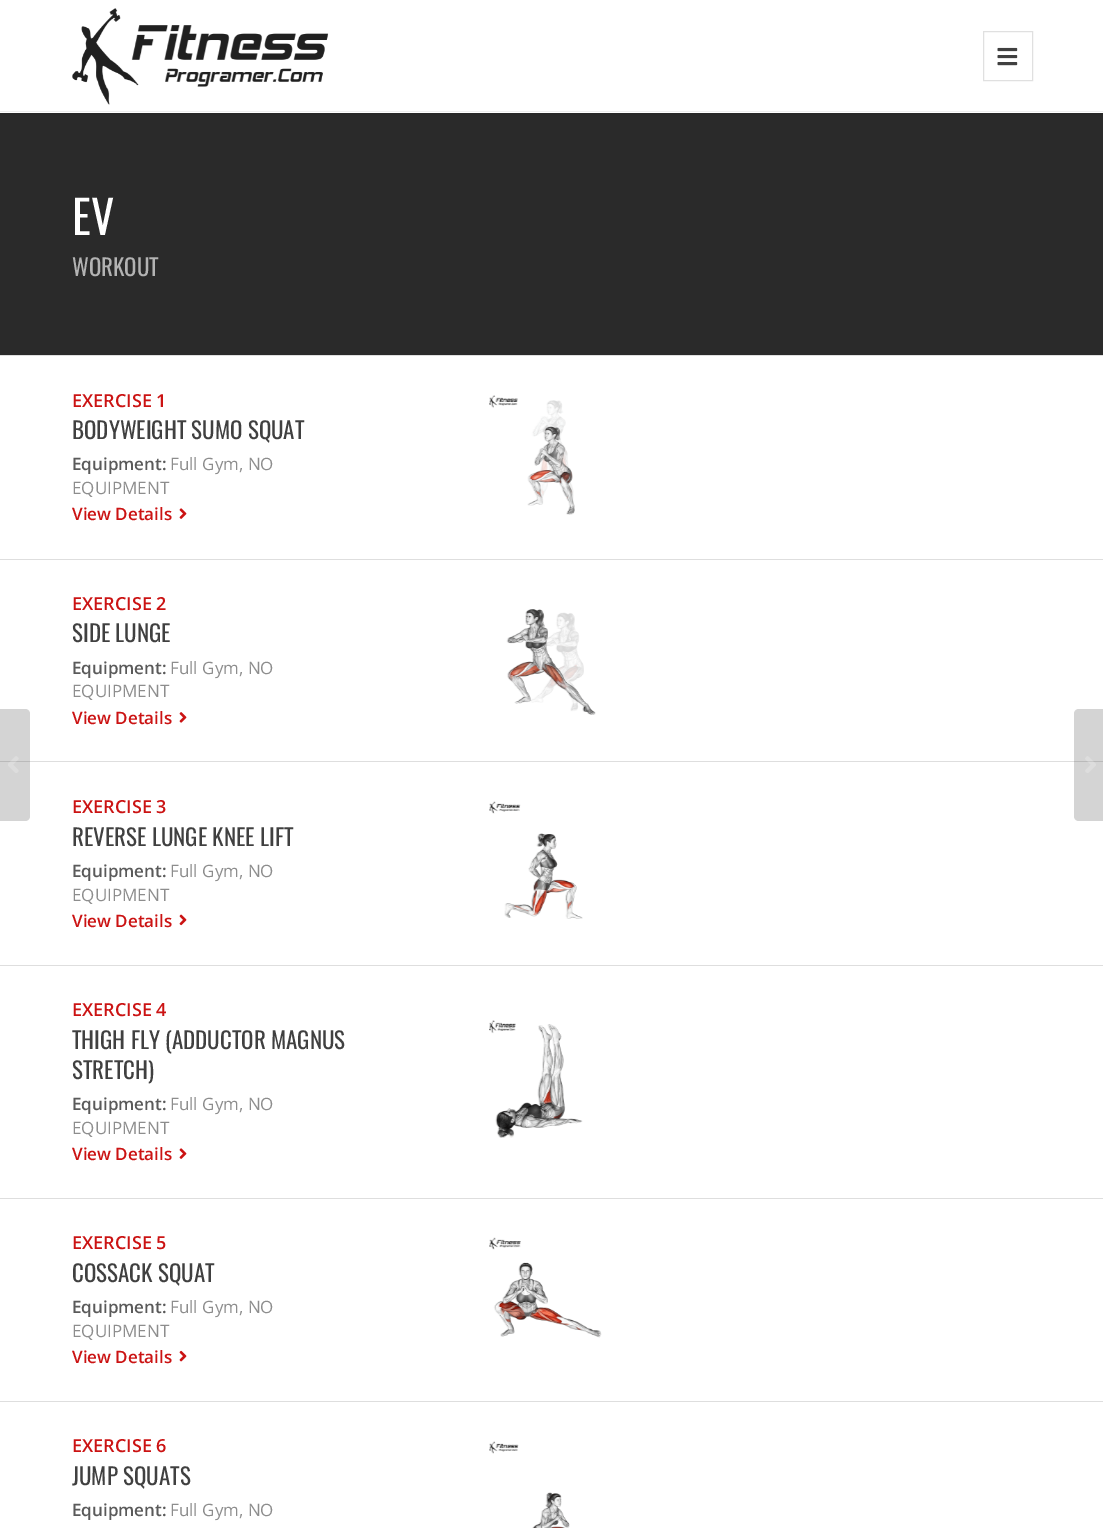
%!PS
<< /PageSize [1103 1528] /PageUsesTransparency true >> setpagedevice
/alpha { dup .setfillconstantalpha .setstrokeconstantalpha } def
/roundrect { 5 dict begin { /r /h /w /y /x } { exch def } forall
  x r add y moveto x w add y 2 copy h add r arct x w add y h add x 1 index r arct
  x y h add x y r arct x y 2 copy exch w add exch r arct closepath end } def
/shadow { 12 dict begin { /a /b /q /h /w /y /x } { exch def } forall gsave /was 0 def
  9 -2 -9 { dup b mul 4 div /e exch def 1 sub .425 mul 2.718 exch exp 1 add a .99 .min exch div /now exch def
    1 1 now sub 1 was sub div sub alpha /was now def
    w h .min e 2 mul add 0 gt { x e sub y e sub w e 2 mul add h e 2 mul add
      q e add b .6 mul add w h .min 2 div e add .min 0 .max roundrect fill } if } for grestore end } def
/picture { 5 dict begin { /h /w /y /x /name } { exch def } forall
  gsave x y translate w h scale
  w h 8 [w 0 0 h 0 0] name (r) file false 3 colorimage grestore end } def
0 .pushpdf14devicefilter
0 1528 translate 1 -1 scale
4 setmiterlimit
1 setgray
0 0 1103 1528 rectfill
0.165 setgray
0 113 1103 242 rectfill
0 setgray
0 1 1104 113 0 3 0.1 shadow
1 setgray
0 0 1103 113 rectfill
0.933 setgray
0 111 1103 1 rectfill
(img1.rgb) 72 8 257 97 picture
0.878 setgray
983.5 31.5 49 49 rectstroke
(img2.rgb) 997 47 21 19 picture
0.871 setgray
0 761 1103 1 rectfill
0.2 alpha
0.165 setgray
newpath -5 709 moveto 25 709 lineto 28 709 30 711 30 714 curveto 30 816 lineto 30 819 28 821 25 821 curveto -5 821 lineto closepath fill
1 alpha
(img3.rgb) 8 756 11 17 picture
/Oswald-Regular [46 0 0 -46 0 0] selectfont
1 setgray
72 235 moveto (EV) show
/Oswald-Regular [23 0 0 -23 0 0] selectfont
0.702 setgray
72 276 moveto (WORKOUT) show
0.871 setgray
0 355 1103 1 rectfill
0 559 1103 1 rectfill
/OpenSans-SemiBold [18 0 0 -18 0 0] selectfont
0.796 0.075 0.075 setrgbcolor
72 407 moveto (EXERCISE 1) show
/Oswald-Regular [23 0 0 -23 0 0] selectfont
0.251 setgray
72 439 moveto (BODYWEIGHT SUMO SQUAT) show
/OpenSans-SemiBold [17 0 0 -17 0 0] selectfont
0.353 setgray
72 470 moveto (Equipment:) show
/OpenSans-Regular [17 0 0 -17 0 0] selectfont
0.553 setgray
170 470 moveto (Full Gym, NO) show
72 494 moveto (EQUIPMENT) show
/OpenSans-SemiBold [17 0 0 -17 0 0] selectfont
0.796 0.075 0.075 setrgbcolor
72 520 moveto (View Details) show
(img4.rgb) 179 508 8 11 picture
(img5.rgb) 489 395 86 120 picture
/OpenSans-SemiBold [18 0 0 -18 0 0] selectfont
72 610 moveto (EXERCISE 2) show
/Oswald-Regular [23 0 0 -23 0 0] selectfont
0.251 setgray
72 642 moveto (SIDE LUNGE) show
/OpenSans-SemiBold [17 0 0 -17 0 0] selectfont
0.353 setgray
72 674 moveto (Equipment:) show
/OpenSans-Regular [17 0 0 -17 0 0] selectfont
0.553 setgray
170 674 moveto (Full Gym, NO) show
72 697 moveto (EQUIPMENT) show
/OpenSans-SemiBold [17 0 0 -17 0 0] selectfont
0.796 0.075 0.075 setrgbcolor
72 724 moveto (View Details) show
(img6.rgb) 179 712 8 11 picture
(img7.rgb) 506 609 90 106 picture
0.871 setgray
0 965 1103 1 rectfill
/OpenSans-SemiBold [18 0 0 -18 0 0] selectfont
0.796 0.075 0.075 setrgbcolor
72 813 moveto (EXERCISE 3) show
/Oswald-Regular [23 0 0 -23 0 0] selectfont
0.251 setgray
72 846 moveto (REVERSE LUNGE KNEE LIFT) show
/OpenSans-SemiBold [17 0 0 -17 0 0] selectfont
0.353 setgray
72 877 moveto (Equipment:) show
/OpenSans-Regular [17 0 0 -17 0 0] selectfont
0.553 setgray
170 877 moveto (Full Gym, NO) show
72 901 moveto (EQUIPMENT) show
/OpenSans-SemiBold [17 0 0 -17 0 0] selectfont
0.796 0.075 0.075 setrgbcolor
72 927 moveto (View Details) show
(img8.rgb) 179 914 8 12 picture
(img9.rgb) 489 801 94 118 picture
0.871 setgray
0 1198 1103 1 rectfill
/OpenSans-SemiBold [18 0 0 -18 0 0] selectfont
0.796 0.075 0.075 setrgbcolor
72 1016 moveto (EXERCISE 4) show
/Oswald-Regular [23 0 0 -23 0 0] selectfont
0.251 setgray
72 1049 moveto (THIGH FLY \(ADDUCTOR MAGNUS) show
72 1079 moveto (STRETCH\)) show
/OpenSans-SemiBold [17 0 0 -17 0 0] selectfont
0.353 setgray
72 1110 moveto (Equipment:) show
/OpenSans-Regular [17 0 0 -17 0 0] selectfont
0.553 setgray
170 1110 moveto (Full Gym, NO) show
72 1134 moveto (EQUIPMENT) show
/OpenSans-SemiBold [17 0 0 -17 0 0] selectfont
0.796 0.075 0.075 setrgbcolor
72 1160 moveto (View Details) show
(img4.rgb) 179 1148 8 11 picture
(img10.rgb) 489 1020 94 118 picture
0.871 setgray
0 1401 1103 1 rectfill
/OpenSans-SemiBold [18 0 0 -18 0 0] selectfont
0.796 0.075 0.075 setrgbcolor
72 1249 moveto (EXERCISE 5) show
/Oswald-Regular [23 0 0 -23 0 0] selectfont
0.251 setgray
72 1282 moveto (COSSACK SQUAT) show
/OpenSans-SemiBold [17 0 0 -17 0 0] selectfont
0.353 setgray
72 1313 moveto (Equipment:) show
/OpenSans-Regular [17 0 0 -17 0 0] selectfont
0.553 setgray
170 1313 moveto (Full Gym, NO) show
72 1337 moveto (EQUIPMENT) show
/OpenSans-SemiBold [17 0 0 -17 0 0] selectfont
0.796 0.075 0.075 setrgbcolor
72 1363 moveto (View Details) show
(img11.rgb) 179 1350 8 12 picture
(img12.rgb) 489 1237 113 101 picture
/OpenSans-SemiBold [18 0 0 -18 0 0] selectfont
72 1452 moveto (EXERCISE 6) show
/Oswald-Regular [23 0 0 -23 0 0] selectfont
0.251 setgray
72 1485 moveto (JUMP SQUATS) show
/OpenSans-SemiBold [17 0 0 -17 0 0] selectfont
0.353 setgray
72 1516 moveto (Equipment:) show
/OpenSans-Regular [17 0 0 -17 0 0] selectfont
0.553 setgray
170 1516 moveto (Full Gym, NO) show
(img13.rgb) 489 1441 81 87 picture
0.2 alpha
0.165 setgray
newpath 1079 709 moveto 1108 709 lineto 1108 821 lineto 1079 821 lineto 1076 821 1074 819 1074 816 curveto 1074 714 lineto 1074 711 1076 709 1079 709 curveto closepath fill
1 alpha
(img14.rgb) 1085 756 11 17 picture
.poppdf14devicefilter showpage
